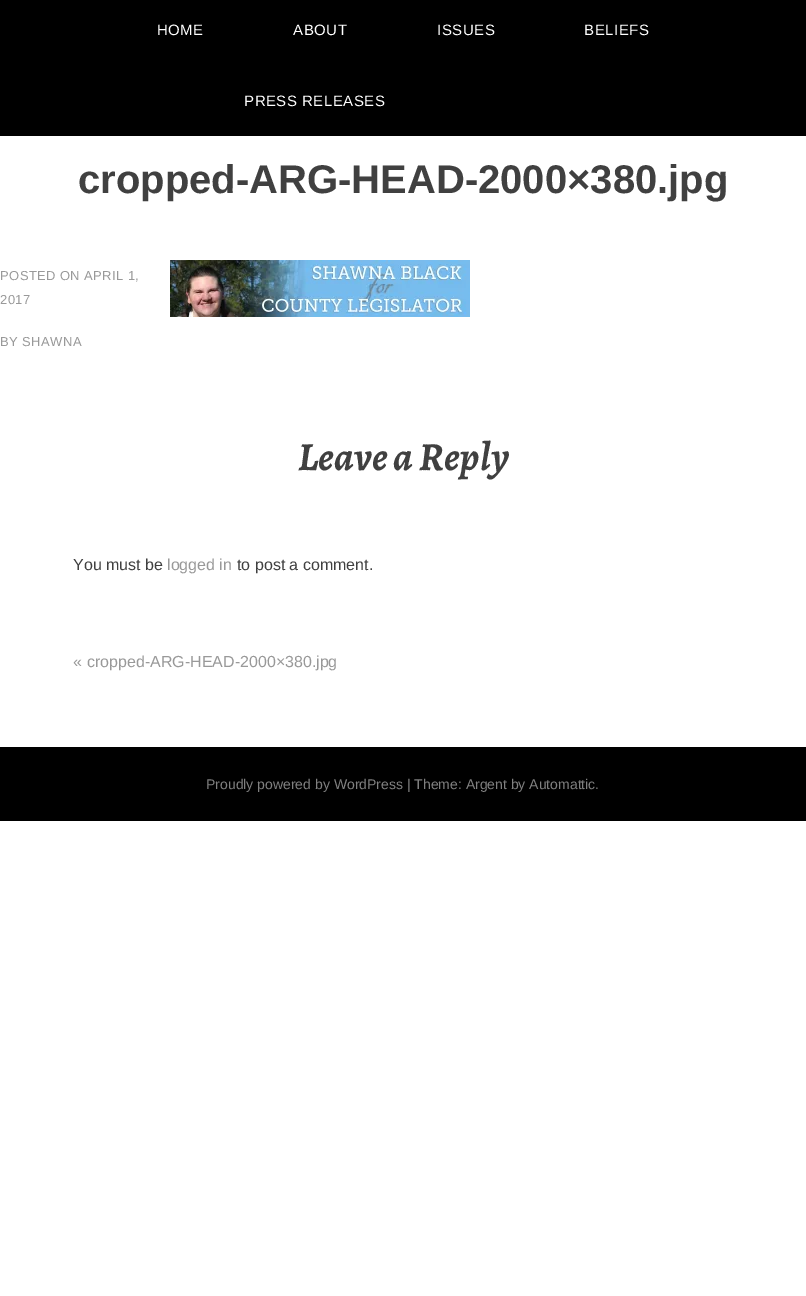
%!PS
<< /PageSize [806 1296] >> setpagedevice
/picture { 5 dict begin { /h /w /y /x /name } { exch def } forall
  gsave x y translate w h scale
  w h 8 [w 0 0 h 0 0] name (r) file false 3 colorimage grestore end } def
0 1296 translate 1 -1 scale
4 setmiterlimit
1 setgray
0 0 806 1296 rectfill
0 setgray
0 0 806 136 rectfill
/LiberationSans-Regular [15 0 0 -15 0 0] selectfont
1 setgray
157 35 moveto 0.5 0 (HOME) ashow
293 35 moveto 0.5 0 (ABOUT) ashow
437 35 moveto 0.5 0 (ISSUES) ashow
584 35 moveto 0.5 0 (BELIEFS) ashow
244 106 moveto 0.5 0 (PRESS RELEASES) ashow
/LiberationSans-Bold [40 0 0 -40 0 0] selectfont
0.251 setgray
78 193 moveto (cropped-ARG-HEAD-2000×380.jpg) show
/LiberationSans-Regular [13 0 0 -13 0 0] selectfont
0.6 setgray
0 280 moveto 0.4 0 (POSTED ON APRIL 1,) ashow
0 304 moveto 0.4 0 (2017) ashow
0 346 moveto 0.4 0 (BY SHAWNA) ashow
(img1.rgb) 170 260 300 57 picture
/Alegreya-BoldItalic [40 0 0 -40 0 0] selectfont
0.251 setgray
298 470 moveto (Leave a Reply) show
/LiberationSans-Regular [16 0 0 -16 0 0] selectfont
73 570 moveto (You must be) show
0.6 setgray
167 570 moveto (logged in) show
0.251 setgray
237 570 moveto (to post a comment.) show
0.6 setgray
73 667 moveto («) show
87 667 moveto (cropped-ARG-HEAD-2000×380.jpg) show
0 setgray
0 747 806 74 rectfill
/LiberationSans-Regular [14 0 0 -14 0 0] selectfont
0.502 setgray
206 789 moveto (Proudly powered by WordPress | Theme: Argent by Automattic.) show
showpage
